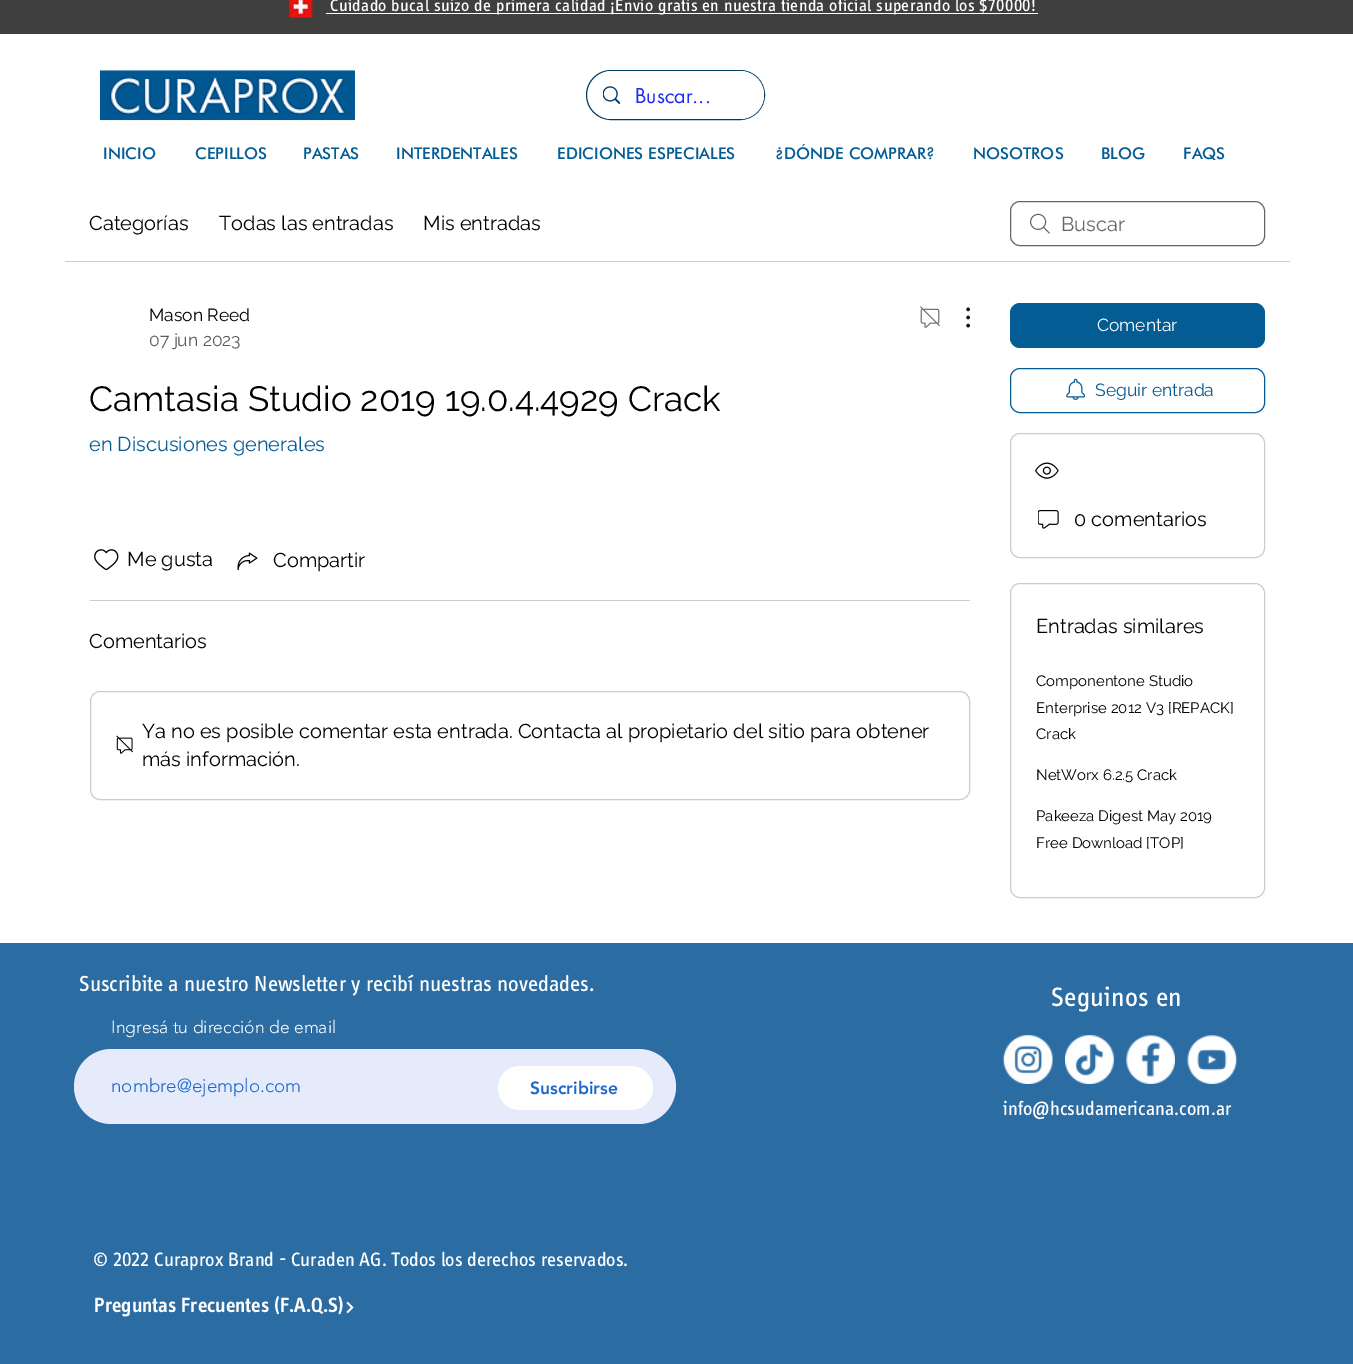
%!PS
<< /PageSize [1353 1364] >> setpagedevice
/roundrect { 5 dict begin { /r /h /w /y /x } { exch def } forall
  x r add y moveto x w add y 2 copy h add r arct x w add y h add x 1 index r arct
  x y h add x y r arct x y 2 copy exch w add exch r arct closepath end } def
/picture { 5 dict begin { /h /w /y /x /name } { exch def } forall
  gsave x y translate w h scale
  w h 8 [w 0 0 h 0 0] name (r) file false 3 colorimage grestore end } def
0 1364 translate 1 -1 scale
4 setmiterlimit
1 setgray
0 0 1353 1364 rectfill
0.247 setgray
0 0 1353 34 rectfill
(img1.rgb) 288 0 25 18 picture
1 setgray
326 13 712 1 rectfill
/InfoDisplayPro-Regular [17.5 0 0 -17.5 0 0] selectfont
330 11 moveto 0.35 0 (Cuidado bucal suizo de primera calidad ¡Envio gratis en nuestra tienda oficial superando los $70000!) ashow
(img2.rgb) 100 70 255 51 picture
0.012 0.239 0.388 setrgbcolor
586.5 70.5 178 49 24.5 roundrect stroke
1 setgray
588 71 176 48 24 roundrect fill
(img3.rgb) 603 86 17 18 picture
/futura-Regular [20 0 0 -20 0 0] selectfont
0.122 0.169 0.953 setrgbcolor
635 103 moveto (Buscar...) show
/Futura-Medium [16.25 0 0 -16.25 0 0] selectfont
0.016 0.361 0.58 setrgbcolor
103 159 moveto (INICIO) show
195 159 moveto (CEPILLOS) show
303 159 moveto (PASTAS) show
396 159 moveto (INTERDENTALES) show
557 159 moveto (EDICIONES ESPECIALES) show
775 159 moveto (¿DÓNDE COMPRAR?) show
973 159 moveto (NOSOTROS) show
1101 159 moveto (BLOG) show
1183 159 moveto (FAQS) show
0.8 setgray
65 261 1225 1 rectfill
/Raleway-Regular [20 0 0 -20 0 0] selectfont
0 setgray
89 230 moveto (Categorías) show
219 230 moveto (Todas las entradas) show
423 230 moveto (Mis entradas) show
(img4.rgb) 1030 213 20 21 picture
0.4 setgray
1010.5 201.5 254 44 9.5 roundrect stroke
1061 231 moveto (Buscar) show
/Raleway-Regular [17.5 0 0 -17.5 0 0] selectfont
0 setgray
149 321 moveto (Mason Reed) show
0.361 setgray
149 346 moveto (07 jun 2023) show
(img5.rgb) 920 306 20 22 picture
(img6.rgb) 966 307 4 21 picture
/Raleway-Regular [35 0 0 -35 0 0] selectfont
0 setgray
89 411 moveto (Camtasia Studio 2019 19.0.4.4929 Crack) show
/Raleway-Regular [20 0 0 -20 0 0] selectfont
0.016 0.361 0.58 setrgbcolor
89 451 moveto (en Discusiones generales) show
(img7.rgb) 94 549 25 22 picture
0 setgray
127 566 moveto (Me gusta) show
(img8.rgb) 237 552 21 18 picture
273 567 moveto (Compartir) show
0.8 setgray
90 600 880 1 rectfill
0 setgray
89 648 moveto (Comentarios) show
0.8 setgray
90.5 691.5 879 108 9.5 roundrect stroke
(img9.rgb) 116 735 17 19 picture
0 setgray
142 738 moveto (Ya no es posible comentar esta entrada. Contacta al propietario del sitio para obtener) show
142 766 moveto (más información.) show
0.016 0.361 0.58 setrgbcolor
1010 303 255 45 10 roundrect fill
/Raleway-Regular [17.5 0 0 -17.5 0 0] selectfont
1 setgray
1097 331 moveto (Comentar) show
0.016 0.361 0.58 setrgbcolor
1010.5 368.5 254 44 9.5 roundrect stroke
(img10.rgb) 1066 378 19 22 picture
1095 396 moveto (Seguir entrada) show
0.8 setgray
1010.5 433.5 254 124 9.5 roundrect stroke
(img11.rgb) 1035 462 24 17 picture
(img12.rgb) 1038 510 21 19 picture
/Raleway-Regular [20 0 0 -20 0 0] selectfont
0 setgray
1074 526 moveto (0 comentarios) show
0.8 setgray
1010.5 583.5 254 314 9.5 roundrect stroke
0 setgray
1036 633 moveto (Entradas similares) show
/Raleway-Regular [15 0 0 -15 0 0] selectfont
1036 686 moveto (Componentone Studio) show
1036 713 moveto (Enterprise 2012 V3 [REPACK]) show
1036 739 moveto (Crack) show
1036 780 moveto (NetWorx 6.2.5 Crack) show
1036 821 moveto (Pakeeza Digest May 2019) show
1036 848 moveto (Free Download [TOP]) show
0.169 0.424 0.639 setrgbcolor
0 943 1353 421 rectfill
/InfoDisplayPro-Regular [22.5 0 0 -22.5 0 0] selectfont
1 setgray
79 991 moveto (Suscribite a nuestro Newsletter y recibí nuestras novedades.) show
/InfoDisplayPro-Regular [27.5 0 0 -27.5 0 0] selectfont
1051 1006 moveto 0.25 0 (Seguinos en) ashow
/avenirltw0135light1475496-Light [17.5 0 0 -17.5 0 0] selectfont
111 1033 moveto (Ingresá tu dirección de email) show
0.898 0.922 0.98 setrgbcolor
74 1049 602 75 37.5 roundrect fill
/avenirltw0135light1475496-Light [18.75 0 0 -18.75 0 0] selectfont
0.114 0.404 0.804 setrgbcolor
111 1092 moveto (nombre@ejemplo.com) show
1 setgray
498 1066 155 44 22 roundrect fill
/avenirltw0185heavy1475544-Black [17.5 0 0 -17.5 0 0] selectfont
0.114 0.404 0.804 setrgbcolor
530 1094 moveto (Suscribirse) show
(img13.rgb) 1003 1035 50 49 picture
(img14.rgb) 1065 1035 49 49 picture
(img15.rgb) 1126 1035 49 49 picture
(img16.rgb) 1187 1035 50 49 picture
/InfoDisplayPro-Regular [20 0 0 -20 0 0] selectfont
1 setgray
1003 1115 moveto (info@hcsudamericana.com.ar) show
93 1266 moveto (© 2022 Curaprox Brand - Curaden AG. Todos los derechos reservados.) show
/InfoDisplayPro-SemiBold [21.25 0 0 -21.25 0 0] selectfont
94 1312 moveto (Preguntas Frecuentes \(F.A.Q.S\)) show
(img17.rgb) 346 1301 8 13 picture
showpage
